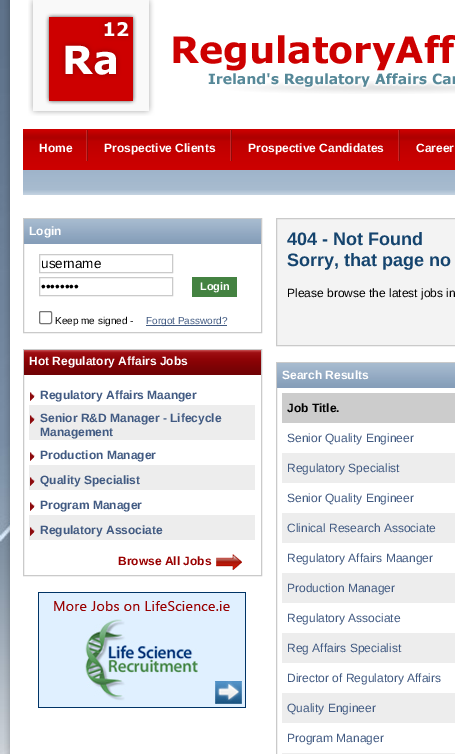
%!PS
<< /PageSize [455 754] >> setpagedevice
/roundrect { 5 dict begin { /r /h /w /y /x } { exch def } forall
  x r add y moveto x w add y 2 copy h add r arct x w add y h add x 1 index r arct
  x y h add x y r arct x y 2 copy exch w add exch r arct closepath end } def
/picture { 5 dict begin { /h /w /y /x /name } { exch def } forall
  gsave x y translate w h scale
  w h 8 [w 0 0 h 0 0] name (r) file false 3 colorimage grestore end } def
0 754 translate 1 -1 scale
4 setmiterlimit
1 setgray
0 0 455 754 rectfill
(img1.rgb) 0 0 10 754 picture
(img2.rgb) 4 0 451 754 picture
(img3.rgb) 28 0 427 116 picture
(img4.rgb) 23 129 432 66 picture
(img5.rgb) 86 130 2 31 picture
/LiberationSans-Bold [12 0 0 -12 0 0] selectfont
39 152 moveto (Home) show
(img5.rgb) 230 130 2 31 picture
104 152 moveto (Prospective Clients) show
(img5.rgb) 398 130 2 31 picture
248 152 moveto (Prospective Candidates) show
416 152 moveto (Career) show
0.792 setgray
23.5 218.5 238 114 rectstroke
(img6.rgb) 24 219 237 25 picture
1 setgray
29 235 moveto (Login) show
0.792 setgray
39.5 254.5 133 18 rectstroke
/LiberationSans-Regular [13.5 0 0 -13.5 0 0] selectfont
0 setgray
41 268 moveto (username) show
0.792 setgray
39.5 277.5 133 18 rectstroke
0 setgray
41 291 moveto (••••••••) show
0.267 0.51 0.255 setrgbcolor
192 277 45 20 rectfill
/LiberationSans-Bold [11 0 0 -11 0 0] selectfont
1 setgray
200 290 moveto (Login) show
0.463 setgray
39.5 311.5 12 12 1.5 roundrect stroke
/LiberationSans-Regular [10 0 0 -10 0 0] selectfont
0 setgray
55 324 moveto (Keep me signed -) show
0.255 0.353 0.51 setrgbcolor
146 325 81 1 rectfill
146 324 moveto (Forgot Password?) show
0.792 setgray
23.5 349.5 238 226 rectstroke
(img7.rgb) 24 350 237 25 picture
/LiberationSans-Bold [12 0 0 -12 0 0] selectfont
1 setgray
29 365 moveto (Hot Regulatory Affairs Jobs) show
(img8.rgb) 30 392 5 9 picture
0.255 0.353 0.51 setrgbcolor
40 399 moveto (Regulatory Affairs Maanger) show
0.929 setgray
29 405 226 35 rectfill
(img9.rgb) 30 415 5 9 picture
0.255 0.353 0.51 setrgbcolor
40 422 moveto (Senior R&D Manager - Lifecycle) show
40 436 moveto (Management) show
(img8.rgb) 30 452 5 9 picture
40 459 moveto (Production Manager) show
0.929 setgray
29 465 226 25 rectfill
(img9.rgb) 30 477 5 9 picture
0.255 0.353 0.51 setrgbcolor
40 484 moveto (Quality Specialist) show
(img8.rgb) 30 502 5 9 picture
40 509 moveto (Program Manager) show
0.929 setgray
29 515 226 25 rectfill
(img9.rgb) 30 527 5 9 picture
0.255 0.353 0.51 setrgbcolor
40 534 moveto (Regulatory Associate) show
0.6 0 0 setrgbcolor
118 565 moveto (Browse All Jobs) show
(img10.rgb) 216 554 26 16 picture
(img11.rgb) 38 592 208 116 picture
0.953 setgray
newpath 276.5 218.5 moveto 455.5 218.5 lineto 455.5 345.5 lineto 276.5 345.5 lineto closepath gsave fill grestore
0.792 setgray
stroke
/LiberationSans-Bold [18 0 0 -18 0 0] selectfont
0.082 0.267 0.431 setrgbcolor
287 245 moveto (404 - Not Found) show
287 266 moveto (Sorry, that page no) show
/LiberationSans-Regular [12 0 0 -12 0 0] selectfont
0 setgray
287 297 moveto (Please browse the latest jobs in) show
0.792 setgray
276.5 362.5 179 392 rectstroke
(img12.rgb) 277 363 178 25 picture
/LiberationSans-Bold [12 0 0 -12 0 0] selectfont
1 setgray
282 379 moveto (Search Results) show
0.8 setgray
282 393 173 30 rectfill
0 setgray
287 412 moveto (Job Title.) show
/LiberationSans-Regular [12 0 0 -12 0 0] selectfont
0.255 0.353 0.51 setrgbcolor
287 442 moveto (Senior Quality Engineer) show
0.929 setgray
282 453 173 30 rectfill
0.255 0.353 0.51 setrgbcolor
287 472 moveto (Regulatory Specialist) show
287 502 moveto (Senior Quality Engineer) show
0.929 setgray
282 513 173 30 rectfill
0.255 0.353 0.51 setrgbcolor
287 532 moveto (Clinical Research Associate) show
287 562 moveto (Regulatory Affairs Maanger) show
0.929 setgray
282 573 173 30 rectfill
0.255 0.353 0.51 setrgbcolor
287 592 moveto (Production Manager) show
287 622 moveto (Regulatory Associate) show
0.929 setgray
282 633 173 30 rectfill
0.255 0.353 0.51 setrgbcolor
287 652 moveto (Reg Affairs Specialist) show
287 682 moveto (Director of Regulatory Affairs) show
0.929 setgray
282 693 173 30 rectfill
0.255 0.353 0.51 setrgbcolor
287 712 moveto (Quality Engineer) show
287 742 moveto (Program Manager) show
0.929 setgray
282 753 173 1 rectfill
showpage
